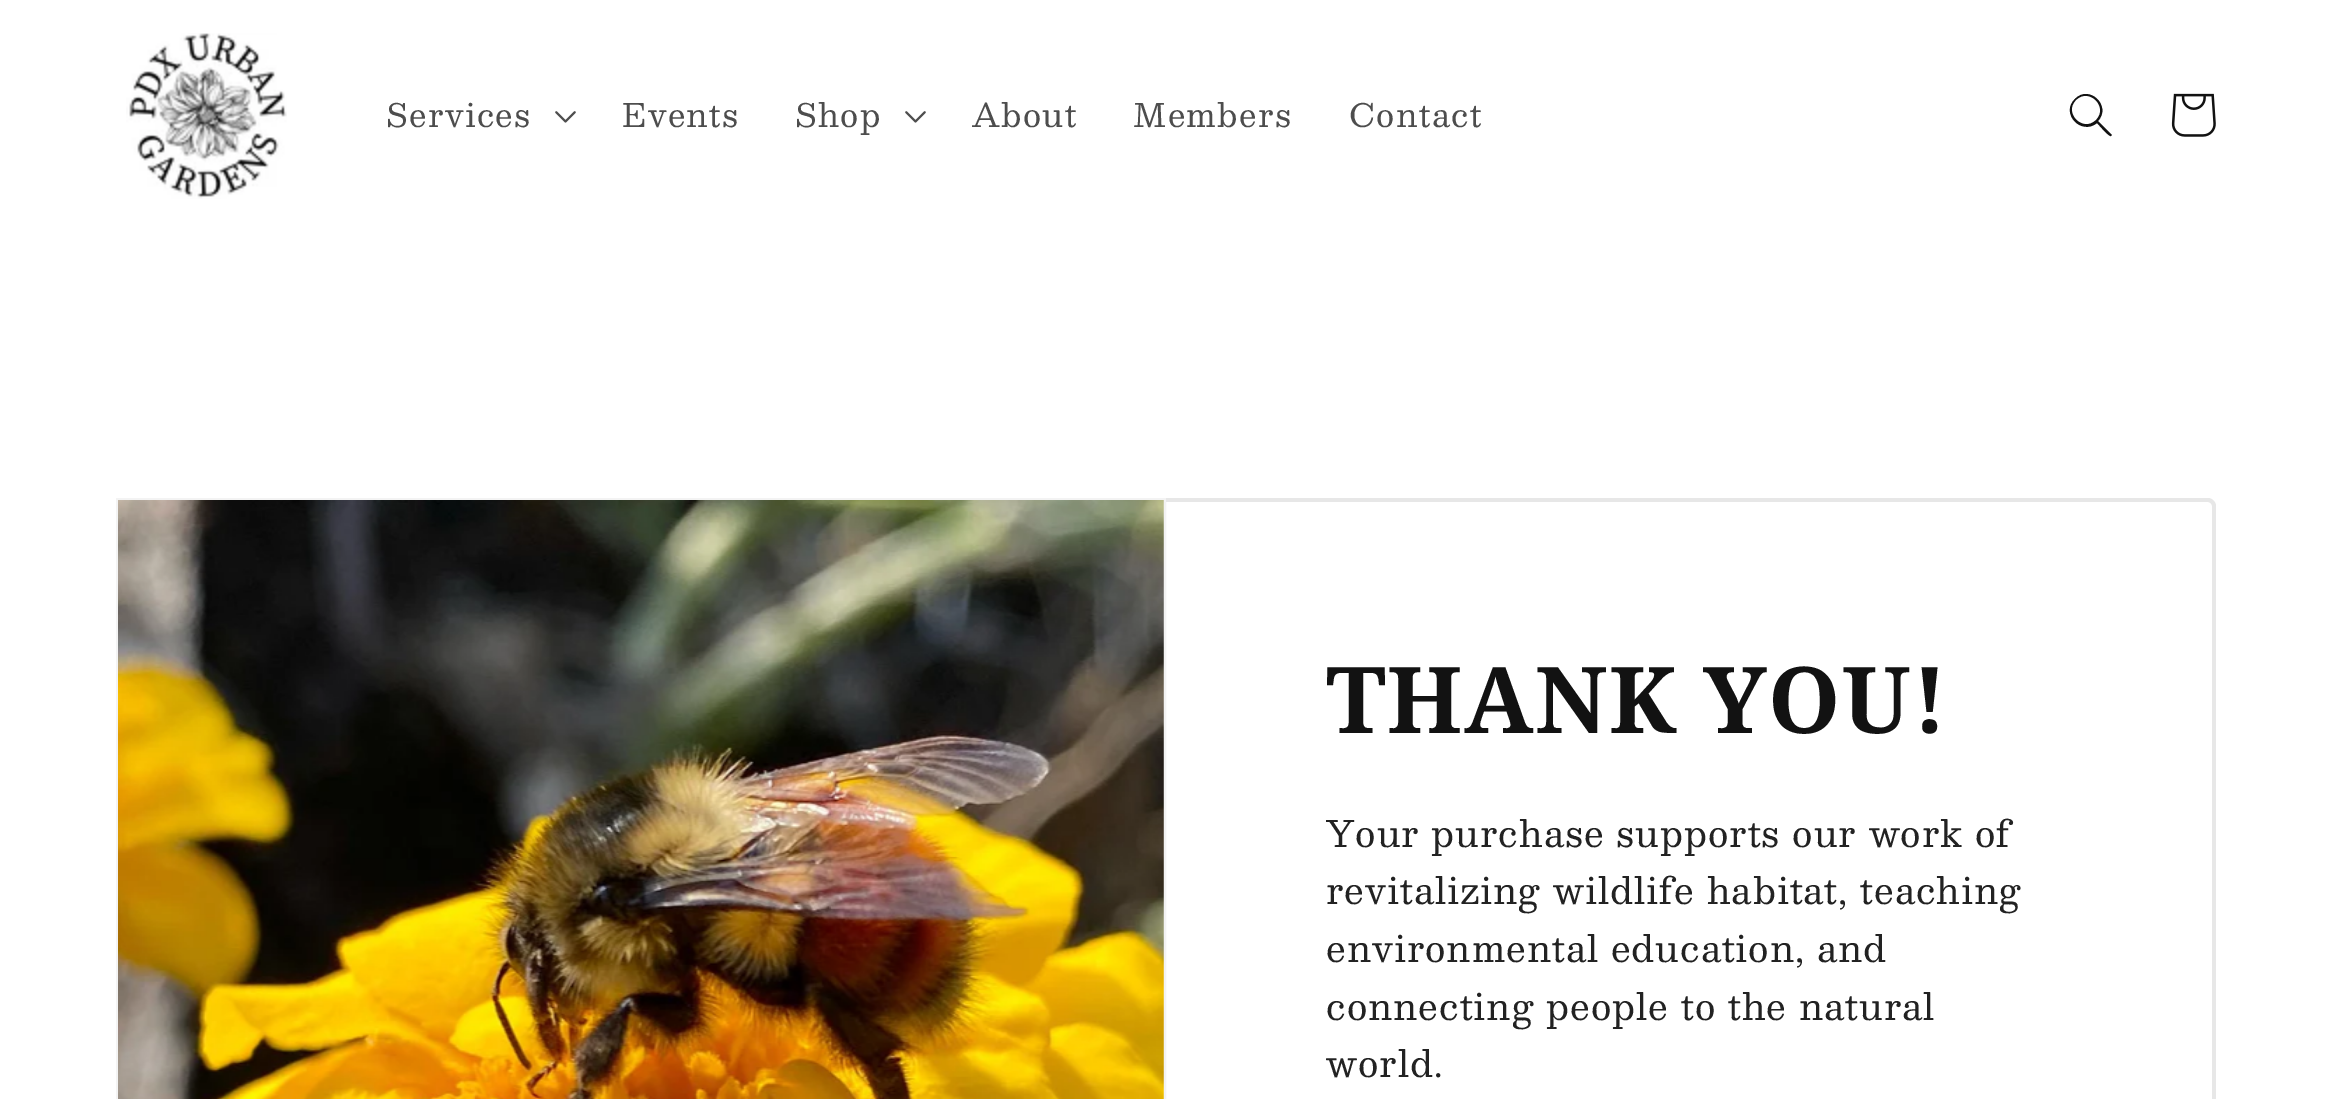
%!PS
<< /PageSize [2329 1099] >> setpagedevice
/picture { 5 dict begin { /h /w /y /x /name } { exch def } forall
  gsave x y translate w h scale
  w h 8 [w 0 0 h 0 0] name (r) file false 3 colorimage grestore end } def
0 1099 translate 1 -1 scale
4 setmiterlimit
1 setgray
0 0 2329 1099 rectfill
(img1.rgb) 126 33 161 166 picture
/Besley-Regular [32 0 0 -32 0 0] selectfont
0.302 setgray
386 127 moveto 1.4 0 (Services) ashow
(img2.rgb) 555 111 21 12 picture
622 127 moveto 1.4 0 (Events) ashow
795 127 moveto 1.4 0 (Shop) ashow
(img2.rgb) 905 111 21 12 picture
972 127 moveto 1.4 0 (About) ashow
1133 127 moveto 1.4 0 (Members) ashow
1349 127 moveto 1.4 0 (Contact) ashow
0.071 setgray
newpath 2096 120 moveto 2083 133 2063 113 2076 100 curveto 2089 87 2109 107 2096 120 curveto closepath 2097 123 moveto 2081 136 2060 113 2075 99 curveto 2089 84 2112 106 2098 121 curveto 2112 135 lineto 2111 136 lineto 2109 137 2099 125 2097 123 curveto closepath eofill
(img3.rgb) 2171 93 45 44 picture
0.953 setgray
2 setlinewidth
117 499 1048 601 rectstroke
(img4.rgb) 118 500 1046 599 picture
0.906 setgray
newpath 1166 498 moveto 2208 498 lineto 2212 498 2216 502 2216 506 curveto 2216 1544 lineto 2216 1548 2212 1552 2208 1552 curveto 1166 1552 lineto closepath 1166 502 moveto 2208 502 lineto 2210 502 2212 504 2212 506 curveto 2212 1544 lineto 2212 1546 2210 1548 2208 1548 curveto 1166 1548 lineto closepath eofill
/NotoSerif-Bold [92 0 0 -92 0 0] selectfont
0.071 setgray
1326 733 moveto 1.4 0 (THANK YOU!) ashow
/Besley-Regular [36 0 0 -36 0 0] selectfont
0.133 setgray
1326 847 moveto 1 0 (Your purchase supports our work of) ashow
1326 904 moveto 1 0 (revitalizing wildlife habitat, teaching) ashow
1326 962 moveto 1 0 (environmental education, and) ashow
1326 1020 moveto 1 0 (connecting people to the natural) ashow
1326 1077 moveto 1 0 (world.) ashow
showpage
